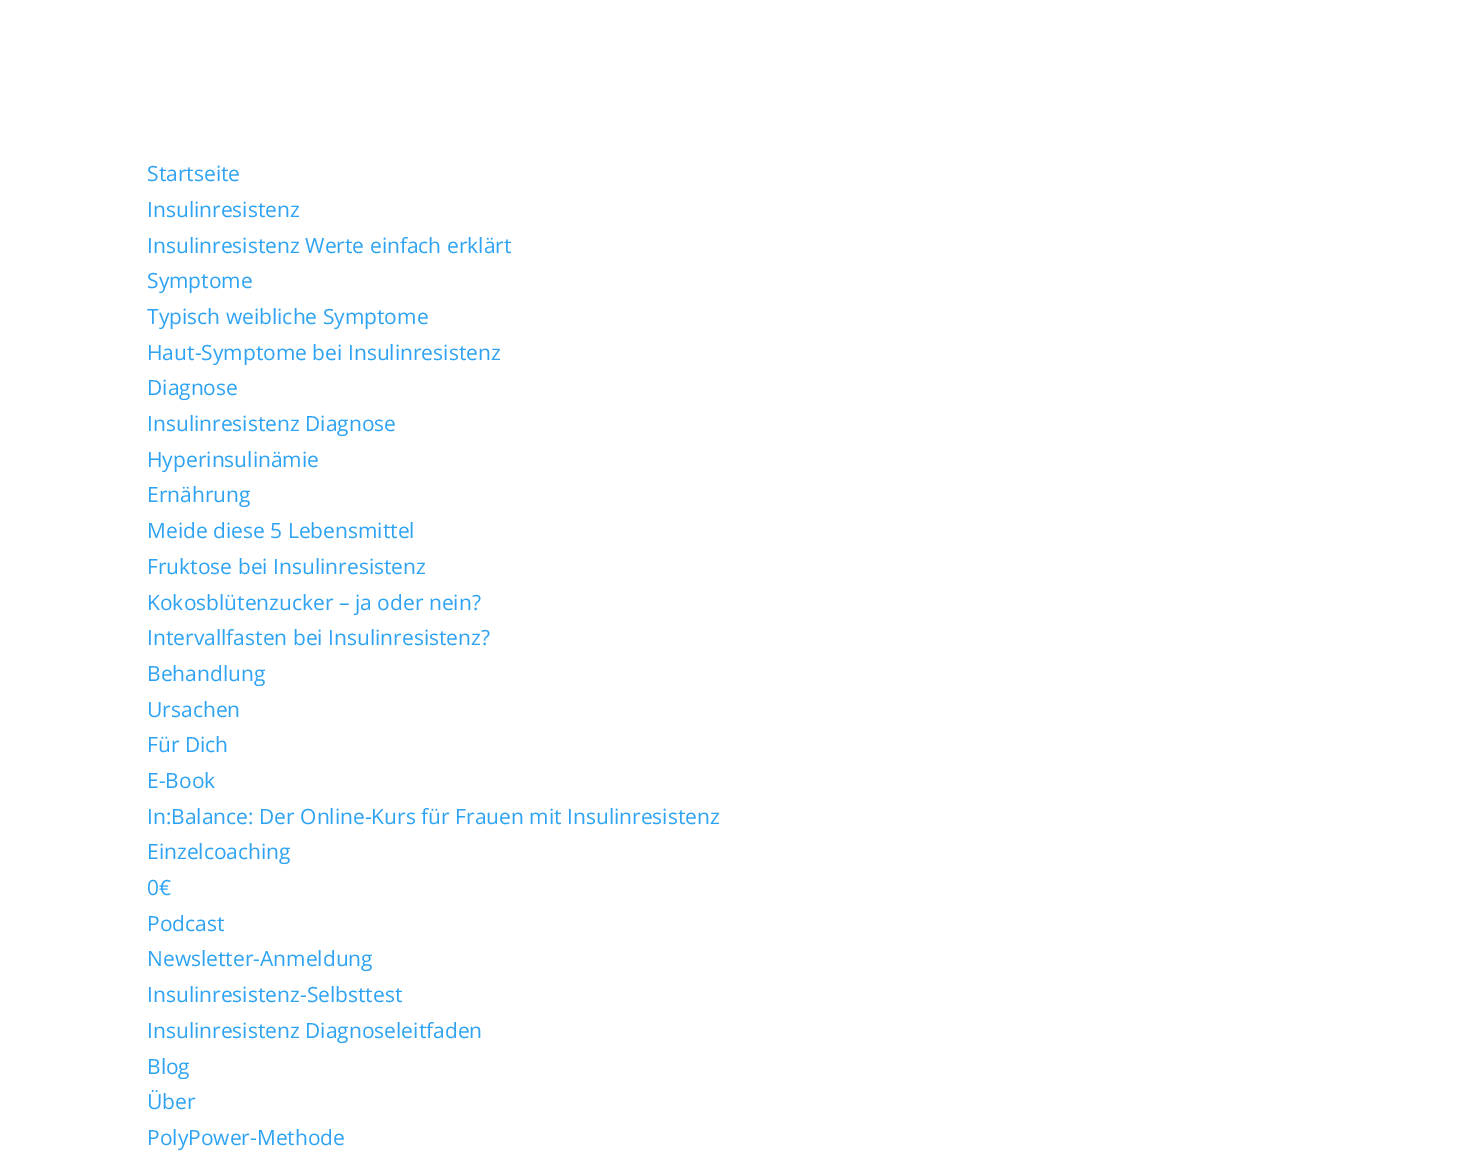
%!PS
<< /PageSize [1466 1169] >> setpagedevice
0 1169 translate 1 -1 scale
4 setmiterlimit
1 setgray
0 0 1466 1169 rectfill
/OpenSans-Regular [21 0 0 -21 0 0] selectfont
0.18 0.639 0.949 setrgbcolor
147 181 moveto (Startseite) show
147 217 moveto (Insulinresistenz) show
147 253 moveto (Insulinresistenz Werte einfach erklärt) show
147 288 moveto (Symptome) show
147 324 moveto (Typisch weibliche Symptome) show
147 360 moveto (Haut-Symptome bei Insulinresistenz) show
147 395 moveto (Diagnose) show
147 431 moveto (Insulinresistenz Diagnose) show
147 467 moveto (Hyperinsulinämie) show
147 502 moveto (Ernährung) show
147 538 moveto (Meide diese 5 Lebensmittel) show
147 574 moveto (Fruktose bei Insulinresistenz) show
147 610 moveto (Kokosblütenzucker – ja oder nein?) show
147 645 moveto (Intervallfasten bei Insulinresistenz?) show
147 681 moveto (Behandlung) show
147 717 moveto (Ursachen) show
147 752 moveto (Für Dich) show
147 788 moveto (E-Book) show
147 824 moveto (In:Balance: Der Online-Kurs für Frauen mit Insulinresistenz) show
147 859 moveto (Einzelcoaching) show
147 895 moveto (0€) show
147 931 moveto (Podcast) show
147 966 moveto (Newsletter-Anmeldung) show
147 1002 moveto (Insulinresistenz-Selbsttest) show
147 1038 moveto (Insulinresistenz Diagnoseleitfaden) show
147 1074 moveto (Blog) show
147 1109 moveto (Über) show
147 1145 moveto (PolyPower-Methode) show
showpage
